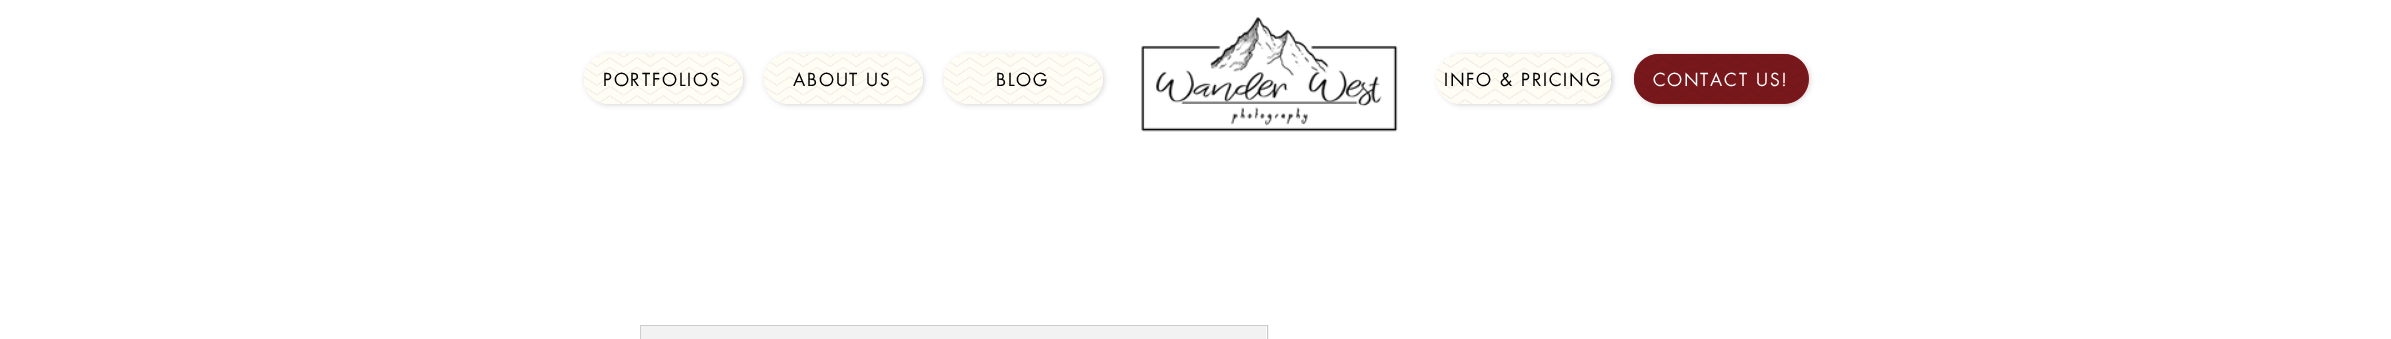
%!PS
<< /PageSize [2391 339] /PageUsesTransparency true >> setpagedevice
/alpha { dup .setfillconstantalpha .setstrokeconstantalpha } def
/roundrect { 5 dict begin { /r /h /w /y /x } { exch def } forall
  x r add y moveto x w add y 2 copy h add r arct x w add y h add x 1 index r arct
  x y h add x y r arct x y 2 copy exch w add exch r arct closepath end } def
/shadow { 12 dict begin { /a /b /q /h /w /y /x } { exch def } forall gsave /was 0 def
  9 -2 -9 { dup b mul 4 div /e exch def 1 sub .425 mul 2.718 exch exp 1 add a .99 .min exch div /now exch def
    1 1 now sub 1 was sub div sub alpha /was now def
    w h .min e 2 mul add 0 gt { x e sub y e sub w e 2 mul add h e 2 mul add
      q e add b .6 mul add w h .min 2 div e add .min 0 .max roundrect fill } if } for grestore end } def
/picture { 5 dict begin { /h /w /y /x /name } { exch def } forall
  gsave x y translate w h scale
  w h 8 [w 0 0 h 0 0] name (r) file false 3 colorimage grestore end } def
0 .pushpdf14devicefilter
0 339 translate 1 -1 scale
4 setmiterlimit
1 setgray
0 0 2391 339 rectfill
0 setgray
585 55 159 50 25 2.5 0.15 shadow
1 0.992 0.957 setrgbcolor
584 54 159 50 25 roundrect fill
(img1.rgb) 584 53 158 51 picture
/futura-Regular [17.5 0 0 -17.5 0 0] selectfont
0 setgray
603 86 moveto 1.75 0 (PORTFOLIOS) ashow
765 55 159 50 25 2.5 0.15 shadow
1 0.992 0.957 setrgbcolor
764 54 159 50 25 roundrect fill
(img1.rgb) 764 53 158 51 picture
0 setgray
793 86 moveto 1.75 0 (ABOUT US) ashow
945 55 159 50 25 2.5 0.15 shadow
1 0.992 0.957 setrgbcolor
944 54 159 50 25 roundrect fill
(img2.rgb) 944 53 158 51 picture
0 setgray
996 86 moveto 1.75 0 (BLOG) ashow
(img3.rgb) 1141 17 257 115 picture
1438 55 175 50 25 2.5 0.15 shadow
1 0.992 0.957 setrgbcolor
1436 54 175 50 25 roundrect fill
(img4.rgb) 1436 54 175 50 picture
0 setgray
1444 86 moveto 1.75 0 (INFO & PRICING) ashow
1635 55 175 50 25 2.5 0.15 shadow
0.627 0.122 0.141 setrgbcolor
1634 54 175 50 25 roundrect fill
(img5.rgb) 1633 53 176 51 picture
1 setgray
1653 86 moveto 1.75 0 (CONTACT US!) ashow
0.8 setgray
640.5 325.5 627 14 rectstroke
0.949 setgray
641 326 625 13 rectfill
.poppdf14devicefilter showpage
